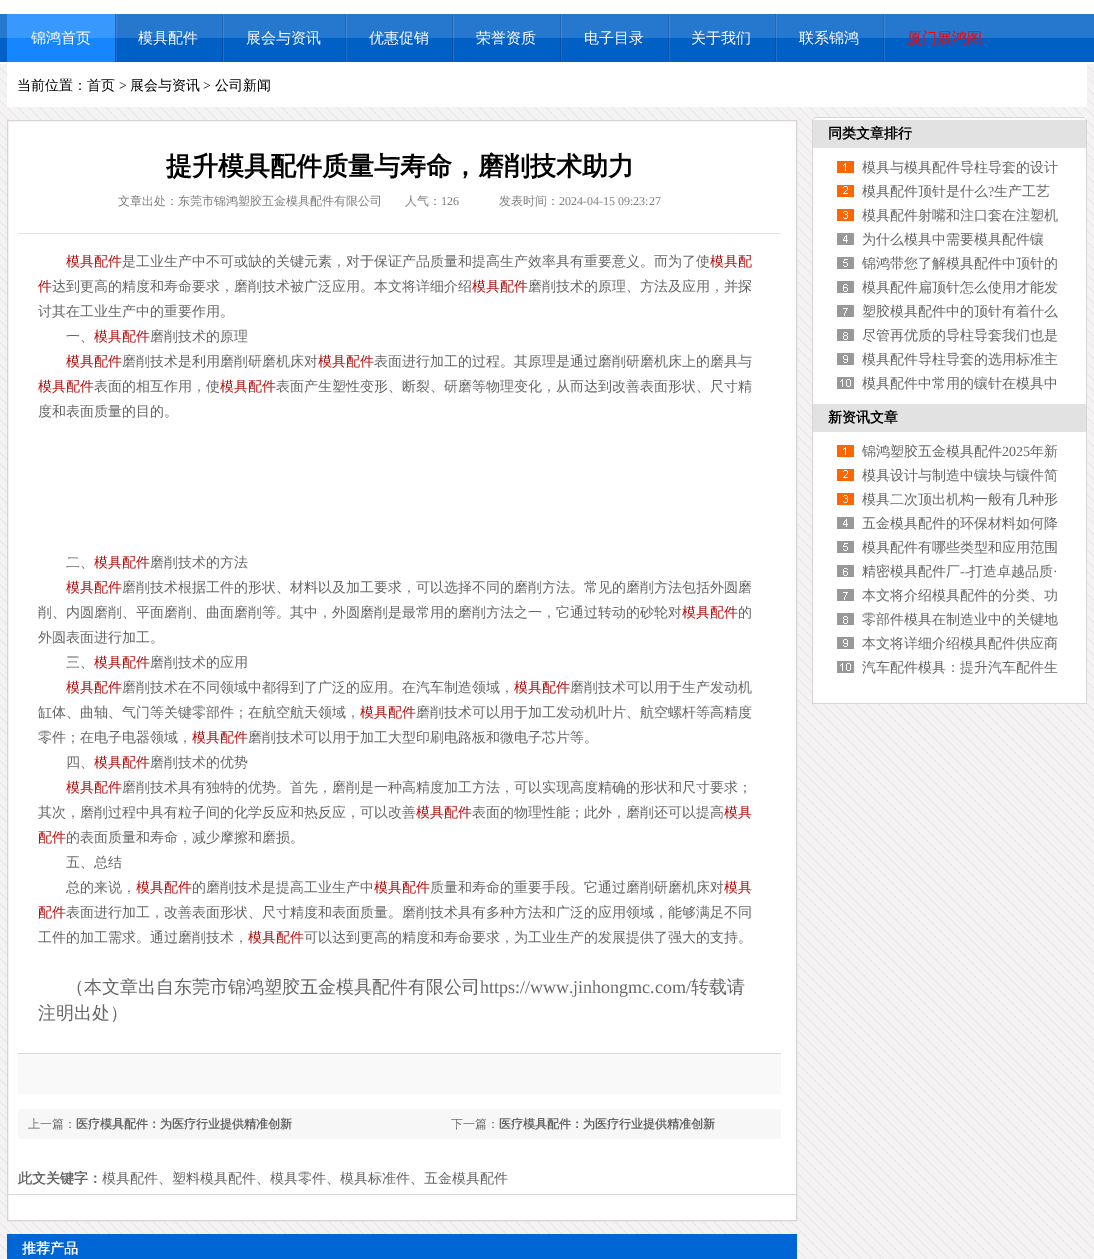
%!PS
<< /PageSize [1094 1259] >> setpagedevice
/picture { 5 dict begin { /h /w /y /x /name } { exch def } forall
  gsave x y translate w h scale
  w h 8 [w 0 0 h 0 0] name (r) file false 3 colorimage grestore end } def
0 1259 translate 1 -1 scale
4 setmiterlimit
1 setgray
0 0 1094 1259 rectfill
(img1.rgb) 0 64 1094 1195 picture
(img2.rgb) 0 14 1094 48 picture
(img3.rgb) 7 14 108 48 picture
/WenQuanYiZenHei-Medium [15 0 0 -15 0 0] selectfont
31 43 moveto (锦鸿首页) show
(img4.rgb) 115 14 2 48 picture
138 43 moveto (模具配件) show
(img4.rgb) 222 14 2 48 picture
246 43 moveto (展会与资讯) show
(img4.rgb) 345 14 2 48 picture
369 43 moveto (优惠促销) show
(img4.rgb) 452 14 2 48 picture
476 43 moveto (荣誉资质) show
(img4.rgb) 560 14 2 48 picture
584 43 moveto (电子目录) show
(img4.rgb) 668 14 2 48 picture
691 43 moveto (关于我们) show
(img4.rgb) 775 14 2 48 picture
799 43 moveto (联系锦鸿) show
(img4.rgb) 883 14 2 48 picture
1 0 0 setrgbcolor
907 43 moveto (厦门展鸿图) show
1 setgray
7 64 1080 43 rectfill
/WenQuanYiZenHei-Medium [14 0 0 -14 0 0] selectfont
0 setgray
17 90 moveto (当前位置：首页) show
/LiberationSerif-Regular [14 0 0 -14 0 0] selectfont
119 90 moveto (>) show
/WenQuanYiZenHei-Medium [14 0 0 -14 0 0] selectfont
130 90 moveto (展会与资讯) show
/LiberationSerif-Regular [14 0 0 -14 0 0] selectfont
203 90 moveto (>) show
/WenQuanYiZenHei-Medium [14 0 0 -14 0 0] selectfont
215 90 moveto (公司新闻) show
1 setgray
newpath 7.5 120.5 moveto 796.5 120.5 lineto 796.5 1220.5 lineto 7.5 1220.5 lineto closepath gsave fill grestore
0.835 setgray
stroke
/WenQuanYiZenHei-Bold [26 0 0 -26 0 0] selectfont
0 setgray
166 175 moveto (提升模具配件质量与寿命，磨削技术助力) show
0.898 setgray
18 233 763 1 rectfill
/WenQuanYiZenHei-Medium [12 0 0 -12 0 0] selectfont
0.494 setgray
118 205 moveto (文章出处：东莞市锦鸿塑胶五金模具配件有限公司) show
405 205 moveto (人气：) show
/LiberationSerif-Regular [12 0 0 -12 0 0] selectfont
441 205 moveto (126) show
/WenQuanYiZenHei-Medium [12 0 0 -12 0 0] selectfont
499 205 moveto (发表时间：) show
/LiberationSerif-Regular [12 0 0 -12 0 0] selectfont
559 205 moveto (2024-04-15 09:23:27) show
/WenQuanYiZenHei-Medium [14 0 0 -14 0 0] selectfont
0.714 0.071 0.071 setrgbcolor
66 266 moveto (模具配件) show
0.4 setgray
122 266 moveto (是工业生产中不可或缺的关键元素，对于保证产品质量和提高生产效率具有重要意义。而为了使) show
0.714 0.071 0.071 setrgbcolor
710 266 moveto (模具配) show
38 291 moveto (件) show
0.4 setgray
52 291 moveto (达到更高的精度和寿命要求，磨削技术被广泛应用。本文将详细介绍) show
0.714 0.071 0.071 setrgbcolor
472 291 moveto (模具配件) show
0.4 setgray
528 291 moveto (磨削技术的原理、方法及应用，并探) show
38 316 moveto (讨其在工业生产中的重要作用。) show
66 341 moveto (一、) show
0.714 0.071 0.071 setrgbcolor
94 341 moveto (模具配件) show
0.4 setgray
150 341 moveto (磨削技术的原理) show
0.714 0.071 0.071 setrgbcolor
66 366 moveto (模具配件) show
0.4 setgray
122 366 moveto (磨削技术是利用磨削研磨机床对) show
0.714 0.071 0.071 setrgbcolor
318 366 moveto (模具配件) show
0.4 setgray
374 366 moveto (表面进行加工的过程。其原理是通过磨削研磨机床上的磨具与) show
0.714 0.071 0.071 setrgbcolor
38 391 moveto (模具配件) show
0.4 setgray
94 391 moveto (表面的相互作用，使) show
0.714 0.071 0.071 setrgbcolor
220 391 moveto (模具配件) show
0.4 setgray
276 391 moveto (表面产生塑性变形、断裂、研磨等物理变化，从而达到改善表面形状、尺寸精) show
38 416 moveto (度和表面质量的目的。) show
66 567 moveto (二、) show
0.714 0.071 0.071 setrgbcolor
94 567 moveto (模具配件) show
0.4 setgray
150 567 moveto (磨削技术的方法) show
0.714 0.071 0.071 setrgbcolor
66 592 moveto (模具配件) show
0.4 setgray
122 592 moveto (磨削技术根据工件的形状、材料以及加工要求，可以选择不同的磨削方法。常见的磨削方法包括外圆磨) show
38 617 moveto (削、内圆磨削、平面磨削、曲面磨削等。其中，外圆磨削是最常用的磨削方法之一，它通过转动的砂轮对) show
0.714 0.071 0.071 setrgbcolor
682 617 moveto (模具配件) show
0.4 setgray
738 617 moveto (的) show
38 642 moveto (外圆表面进行加工。) show
66 667 moveto (三、) show
0.714 0.071 0.071 setrgbcolor
94 667 moveto (模具配件) show
0.4 setgray
150 667 moveto (磨削技术的应用) show
0.714 0.071 0.071 setrgbcolor
66 692 moveto (模具配件) show
0.4 setgray
122 692 moveto (磨削技术在不同领域中都得到了广泛的应用。在汽车制造领域，) show
0.714 0.071 0.071 setrgbcolor
514 692 moveto (模具配件) show
0.4 setgray
570 692 moveto (磨削技术可以用于生产发动机) show
38 717 moveto (缸体、曲轴、气门等关键零部件；在航空航天领域，) show
0.714 0.071 0.071 setrgbcolor
360 717 moveto (模具配件) show
0.4 setgray
416 717 moveto (磨削技术可以用于加工发动机叶片、航空螺杆等高精度) show
38 742 moveto (零件；在电子电器领域，) show
0.714 0.071 0.071 setrgbcolor
192 742 moveto (模具配件) show
0.4 setgray
248 742 moveto (磨削技术可以用于加工大型印刷电路板和微电子芯片等。) show
66 767 moveto (四、) show
0.714 0.071 0.071 setrgbcolor
94 767 moveto (模具配件) show
0.4 setgray
150 767 moveto (磨削技术的优势) show
0.714 0.071 0.071 setrgbcolor
66 792 moveto (模具配件) show
0.4 setgray
122 792 moveto (磨削技术具有独特的优势。首先，磨削是一种高精度加工方法，可以实现高度精确的形状和尺寸要求；) show
38 817 moveto (其次，磨削过程中具有粒子间的化学反应和热反应，可以改善) show
0.714 0.071 0.071 setrgbcolor
416 817 moveto (模具配件) show
0.4 setgray
472 817 moveto (表面的物理性能；此外，磨削还可以提高) show
0.714 0.071 0.071 setrgbcolor
724 817 moveto (模具) show
38 842 moveto (配件) show
0.4 setgray
66 842 moveto (的表面质量和寿命，减少摩擦和磨损。) show
66 867 moveto (五、总结) show
66 892 moveto (总的来说，) show
0.714 0.071 0.071 setrgbcolor
136 892 moveto (模具配件) show
0.4 setgray
192 892 moveto (的磨削技术是提高工业生产中) show
0.714 0.071 0.071 setrgbcolor
374 892 moveto (模具配件) show
0.4 setgray
430 892 moveto (质量和寿命的重要手段。它通过磨削研磨机床对) show
0.714 0.071 0.071 setrgbcolor
724 892 moveto (模具) show
38 917 moveto (配件) show
0.4 setgray
66 917 moveto (表面进行加工，改善表面形状、尺寸精度和表面质量。磨削技术具有多种方法和广泛的应用领域，能够满足不同) show
38 942 moveto (工件的加工需求。通过磨削技术，) show
0.714 0.071 0.071 setrgbcolor
248 942 moveto (模具配件) show
0.4 setgray
304 942 moveto (可以达到更高的精度和寿命要求，为工业生产的发展提供了强大的支持。) show
/WenQuanYiZenHei-Medium [18 0 0 -18 0 0] selectfont
66 993 moveto (（本文章出自东莞市锦鸿塑胶五金模具配件有限公司) show
/LiberationSerif-Regular [18 0 0 -18 0 0] selectfont
480 993 moveto (https://www.jinhongmc.com/) show
/WenQuanYiZenHei-Medium [18 0 0 -18 0 0] selectfont
691 993 moveto (转载请) show
38 1019 moveto (注明出处）) show
0.976 setgray
18 1054 763 40 rectfill
0.843 setgray
18 1053 763 1 rectfill
0.969 setgray
18 1109 763 30 rectfill
/WenQuanYiZenHei-Medium [12 0 0 -12 0 0] selectfont
0.4 setgray
28 1128 moveto (上一篇：) show
/WenQuanYiZenHei-Bold [12 0 0 -12 0 0] selectfont
76 1128 moveto (医疗模具配件：为医疗行业提供精准创新) show
/WenQuanYiZenHei-Medium [12 0 0 -12 0 0] selectfont
451 1128 moveto (下一篇：) show
/WenQuanYiZenHei-Bold [12 0 0 -12 0 0] selectfont
499 1128 moveto (医疗模具配件：为医疗行业提供精准创新) show
0.843 setgray
8 1194 788 1 rectfill
/WenQuanYiZenHei-Bold [14 0 0 -14 0 0] selectfont
0.4 setgray
18 1183 moveto (此文关键字：) show
/WenQuanYiZenHei-Medium [14 0 0 -14 0 0] selectfont
102 1183 moveto (模具配件、塑料模具配件、模具零件、模具标准件、五金模具配件) show
0 0.4 0.839 setrgbcolor
7 1234 790 25 rectfill
/WenQuanYiZenHei-Bold [14 0 0 -14 0 0] selectfont
1 setgray
22 1253 moveto (推荐产品) show
(img5.rgb) 812 117 275 3 picture
813 148 273 555 rectfill
0.835 setgray
1086 120 1 584 rectfill
812 703 275 1 rectfill
812 120 1 584 rectfill
0.886 setgray
813 120 273 28 rectfill
0 setgray
828 138 moveto (同类文章排行) show
(img6.rgb) 837 161 17 228 picture
/WenQuanYiZenHei-Medium [14 0 0 -14 0 0] selectfont
0.4 setgray
862 172 moveto (模具与模具配件导柱导套的设计) show
862 196 moveto (模具配件顶针是什么) show
/LiberationSerif-Regular [14 0 0 -14 0 0] selectfont
988 196 moveto (?) show
/WenQuanYiZenHei-Medium [14 0 0 -14 0 0] selectfont
994 196 moveto (生产工艺) show
862 220 moveto (模具配件射嘴和注口套在注塑机) show
862 244 moveto (为什么模具中需要模具配件镶) show
862 268 moveto (锦鸿带您了解模具配件中顶针的) show
862 292 moveto (模具配件扁顶针怎么使用才能发) show
862 316 moveto (塑胶模具配件中的顶针有着什么) show
862 340 moveto (尽管再优质的导柱导套我们也是) show
862 364 moveto (模具配件导柱导套的选用标准主) show
862 388 moveto (模具配件中常用的镶针在模具中) show
0.886 setgray
813 404 273 28 rectfill
/WenQuanYiZenHei-Bold [14 0 0 -14 0 0] selectfont
0 setgray
828 422 moveto (新资讯文章) show
(img6.rgb) 837 445 17 228 picture
/WenQuanYiZenHei-Medium [14 0 0 -14 0 0] selectfont
0.4 setgray
862 456 moveto (锦鸿塑胶五金模具配件) show
/LiberationSerif-Regular [14 0 0 -14 0 0] selectfont
1002 456 moveto (2025) show
/WenQuanYiZenHei-Medium [14 0 0 -14 0 0] selectfont
1030 456 moveto (年新) show
862 480 moveto (模具设计与制造中镶块与镶件简) show
862 504 moveto (模具二次顶出机构一般有几种形) show
862 528 moveto (五金模具配件的环保材料如何降) show
862 552 moveto (模具配件有哪些类型和应用范围) show
862 576 moveto (精密模具配件厂) show
/LiberationSerif-Regular [14 0 0 -14 0 0] selectfont
960 576 moveto (--) show
/WenQuanYiZenHei-Medium [14 0 0 -14 0 0] selectfont
969 576 moveto (打造卓越品质) show
/LiberationSerif-Regular [14 0 0 -14 0 0] selectfont
1053 576 moveto (·) show
/WenQuanYiZenHei-Medium [14 0 0 -14 0 0] selectfont
862 600 moveto (本文将介绍模具配件的分类、功) show
862 624 moveto (零部件模具在制造业中的关键地) show
862 648 moveto (本文将详细介绍模具配件供应商) show
862 672 moveto (汽车配件模具：提升汽车配件生) show
showpage
